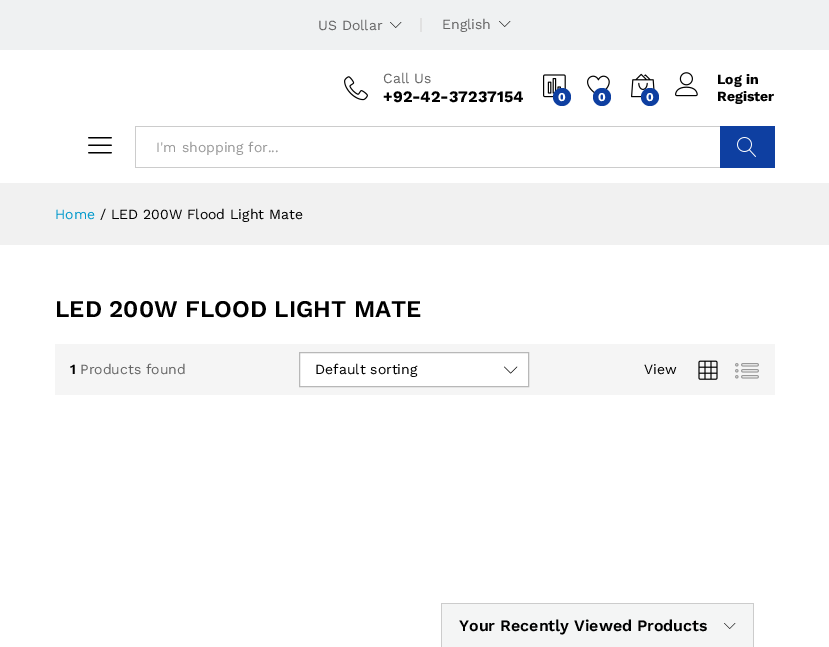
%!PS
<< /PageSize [829 647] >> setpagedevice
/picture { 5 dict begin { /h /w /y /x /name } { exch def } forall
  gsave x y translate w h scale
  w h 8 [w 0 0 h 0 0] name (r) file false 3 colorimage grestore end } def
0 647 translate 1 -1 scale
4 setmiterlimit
1 setgray
0 0 829 647 rectfill
0.937 0.945 0.949 setrgbcolor
0 0 829 50 rectfill
/WorkSans-Regular [14 0 0 -14 0 0] selectfont
0.4 setgray
318 30 moveto (US Dollar) show
(img1.rgb) 390 22 12 6 picture
0.882 setgray
420 18 2 14 rectfill
0.4 setgray
442 29 moveto (English) show
(img1.rgb) 499 21 12 6 picture
(img2.rgb) 344 76 24 25 picture
383 83 moveto (Call Us) show
/WorkSans-Bold [16 0 0 -16 0 0] selectfont
0 setgray
383 102 moveto (+92-42-37237154) show
(img3.rgb) 543 74 23 24 picture
0.055 0.247 0.631 setrgbcolor
newpath 562 97 9 0 360 arc closepath fill
/WorkSans-Bold [12 0 0 -12 0 0] selectfont
1 setgray
558 101 moveto (0) show
(img4.rgb) 587 75 23 18 picture
0.055 0.247 0.631 setrgbcolor
newpath 602 97 9 0 360 arc closepath fill
1 setgray
598 101 moveto (0) show
(img5.rgb) 631 73 24 25 picture
0.055 0.247 0.631 setrgbcolor
newpath 650 97 9 0 360 arc closepath fill
1 setgray
646 101 moveto (0) show
(img6.rgb) 675 72 23 25 picture
/WorkSans-Bold [14 0 0 -14 0 0] selectfont
0 setgray
717 84 moveto (Log in) show
717 101 moveto (Register) show
(img7.rgb) 88 137 24 17 picture
0.8 setgray
135 126 585 1 rectfill
135 167 585 1 rectfill
135 126 1 42 rectfill
/WorkSans-Regular [14 0 0 -14 0 0] selectfont
0.6 setgray
156 152 moveto (I'm shopping for...) show
0.055 0.247 0.631 setrgbcolor
720 126 55 42 rectfill
(img8.rgb) 737 137 19 20 picture
0.945 setgray
0 183 829 62 rectfill
0 0.6 0.8 setrgbcolor
55 219 moveto (Home) show
0 setgray
100 219 moveto (/ LED 200W Flood Light Mate) show
/WorkSans-SemiBold [24 0 0 -24 0 0] selectfont
55 317 moveto (LED 200W FLOOD LIGHT MATE) show
0.961 setgray
55 344 720 51 rectfill
/WorkSans-SemiBold [14 0 0 -14 0 0] selectfont
0 setgray
70 374 moveto (1) show
/WorkSans-Regular [14 0 0 -14 0 0] selectfont
0.4 setgray
80 374 moveto (Products found) show
1 setgray
newpath 299.5 352.5 moveto 528.5 352.5 lineto 528.5 386.5 lineto 299.5 386.5 lineto closepath gsave fill grestore
0.722 setgray
stroke
0 setgray
315 374 moveto (Default sorting) show
(img9.rgb) 504 366 14 8 picture
644 374 moveto (View) show
(img10.rgb) 698 360 20 20 picture
(img11.rgb) 735 363 24 16 picture
0.957 0.961 0.961 setrgbcolor
442 604 311 43 rectfill
0.8 setgray
441 603 313 1 rectfill
753 603 1 44 rectfill
441 603 1 44 rectfill
/WorkSans-SemiBold [16 0 0 -16 0 0] selectfont
0 setgray
459 631 moveto (Your Recently Viewed Products) show
(img12.rgb) 724 623 12 6 picture
showpage
